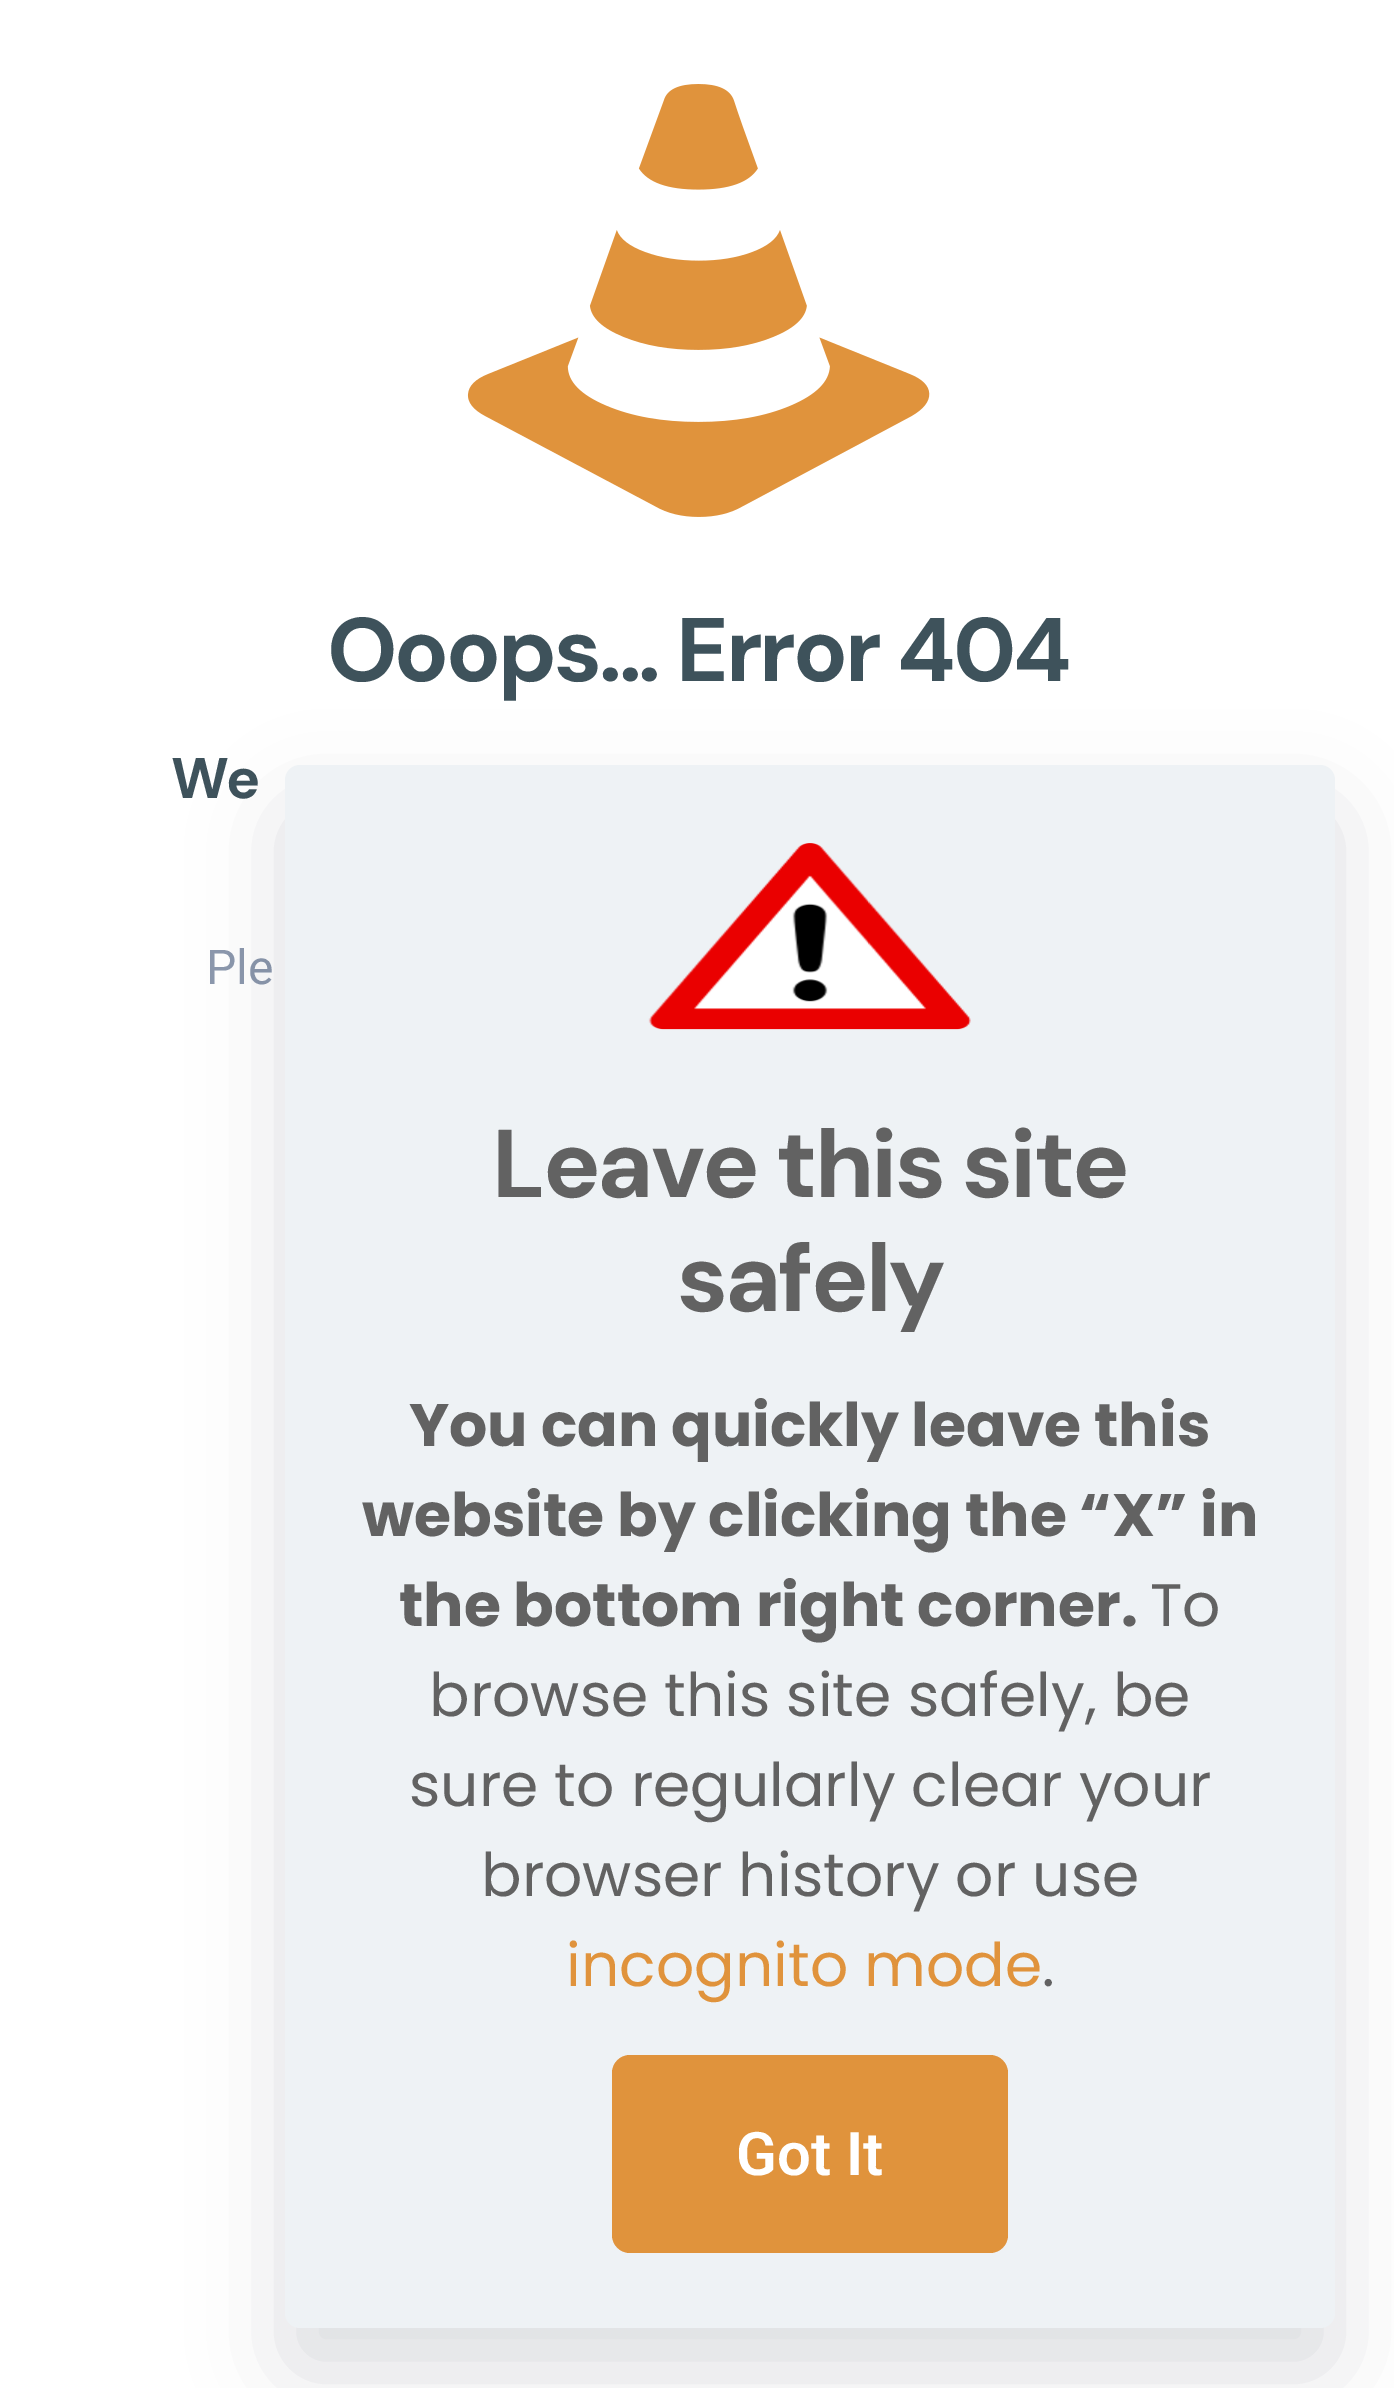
%!PS
<< /PageSize [1394 2388] /PageUsesTransparency true >> setpagedevice
/alpha { dup .setfillconstantalpha .setstrokeconstantalpha } def
/roundrect { 5 dict begin { /r /h /w /y /x } { exch def } forall
  x r add y moveto x w add y 2 copy h add r arct x w add y h add x 1 index r arct
  x y h add x y r arct x y 2 copy exch w add exch r arct closepath end } def
/shadow { 12 dict begin { /a /b /q /h /w /y /x } { exch def } forall gsave /was 0 def
  9 -2 -9 { dup b mul 4 div /e exch def 1 sub .425 mul 2.718 exch exp 1 add a .99 .min exch div /now exch def
    1 1 now sub 1 was sub div sub alpha /was now def
    w h .min e 2 mul add 0 gt { x e sub y e sub w e 2 mul add h e 2 mul add
      q e add b .6 mul add w h .min 2 div e add .min 0 .max roundrect fill } if } for grestore end } def
/picture { 5 dict begin { /h /w /y /x /name } { exch def } forall
  gsave x y translate w h scale
  w h 8 [w 0 0 h 0 0] name (r) file false 3 colorimage grestore end } def
0 .pushpdf14devicefilter
0 2388 translate 1 -1 scale
4 setmiterlimit
1 setgray
0 0 1394 2388 rectfill
(img1.rgb) 467 84 463 433 picture
/DMSans-Bold [90 0 0 -90 0 0] selectfont
0.243 0.322 0.357 setrgbcolor
327 681 moveto -3 0 (Ooops... Error 404) ashow
/DMSans-Bold [57 0 0 -57 0 0] selectfont
171 798 moveto -3 0 (We) ashow
/Roboto-Regular [48 0 0 -48 0 0] selectfont
0.553 0.6 0.682 setrgbcolor
206 984 moveto (Ple) show
0.004 0.027 0.153 setrgbcolor
285 810 1050 1563 15 45 0.13 shadow
0.933 0.949 0.961 setrgbcolor
285 765 1050 1563 15 roundrect fill
(img2.rgb) 648 843 323 187 picture
/DMSans-Bold [96 0 0 -96 0 0] selectfont
0.384 setgray
492 1197 moveto -3 0 (Leave this site) ashow
677 1311 moveto -3 0 (safely) ashow
/Poppins-Bold [60 0 0 -60 0 0] selectfont
409 1446 moveto (You can quickly leave this) show
362 1536 moveto (website by clicking the “X” in) show
399 1626 moveto (the bottom right corner.) show
/Poppins-Regular [60 0 0 -60 0 0] selectfont
1150 1626 moveto (To) show
429 1716 moveto (browse this site safely, be) show
409 1806 moveto (sure to regularly clear your) show
481 1896 moveto (browser history or use) show
0.878 0.576 0.235 setrgbcolor
566 1986 moveto (incognito mode) show
0.384 setgray
1042 1986 moveto (.) show
0.878 0.576 0.235 setrgbcolor
612 2055 396 198 18 roundrect fill
/Roboto-SemiBold [60 0 0 -60 0 0] selectfont
1 setgray
736 2175 moveto (Got It) show
.poppdf14devicefilter showpage
